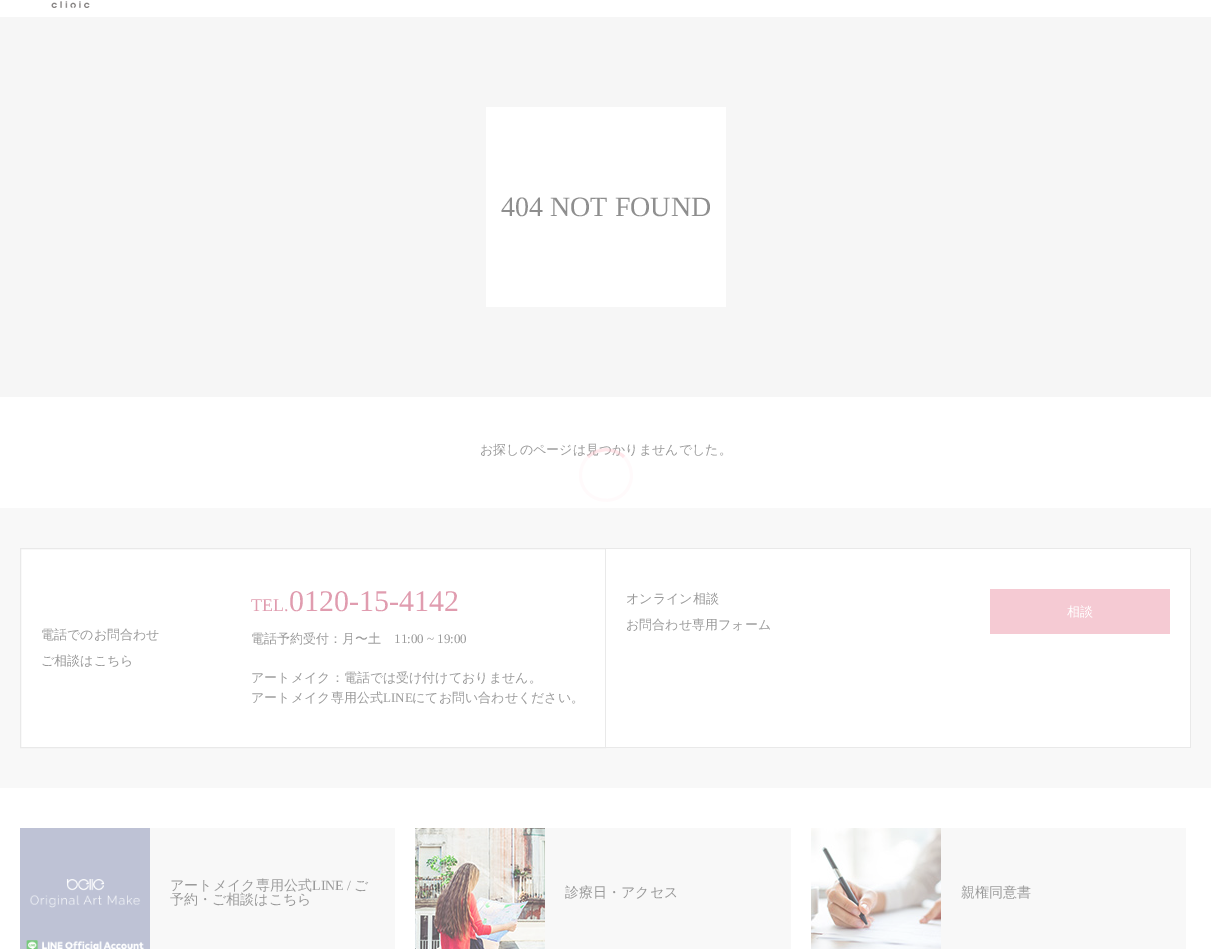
%!PS
<< /PageSize [1211 949] /PageUsesTransparency true >> setpagedevice
/alpha { dup .setfillconstantalpha .setstrokeconstantalpha } def
/picture { 5 dict begin { /h /w /y /x /name } { exch def } forall
  gsave x y translate w h scale
  w h 8 [w 0 0 h 0 0] name (r) file false 3 colorimage grestore end } def
0 .pushpdf14devicefilter
0 949 translate 1 -1 scale
4 setmiterlimit
1 setgray
0 0 1211 949 rectfill
(img1.rgb) 51 1 39 7 picture
0.965 setgray
0 17 1211 380 rectfill
1 setgray
486 107 240 200 rectfill
/LiberationSerif-Regular [28 0 0 -28 0 0] selectfont
0.557 setgray
501 216 moveto (404 NOT FOUND) show
/WenQuanYiZenHei-Medium [13 0 0 -13 0 0] selectfont
0.604 setgray
480 454 moveto (お探しのページは見つかりませんでした。) show
0.973 setgray
0 508 1211 280 rectfill
1 setgray
newpath 20.5 548.5 moveto 605.5 548.5 lineto 605.5 747.5 lineto 20.5 747.5 lineto closepath gsave fill grestore
0.914 setgray
stroke
0.604 setgray
41 639 moveto (電話でのお問合わせ) show
41 665 moveto (ご相談はこちら) show
/LiberationSerif-Regular [18 0 0 -18 0 0] selectfont
0.878 0.612 0.686 setrgbcolor
251 611 moveto (TEL.) show
/LiberationSerif-Regular [30 0 0 -30 0 0] selectfont
289 611 moveto (0120-15-4142) show
/WenQuanYiZenHei-Medium [13 0 0 -13 0 0] selectfont
0.604 setgray
251 643 moveto (電話予約受付：月〜土) show
/LiberationSerif-Regular [13 0 0 -13 0 0] selectfont
394 643 moveto (11:00 ~ 19:00) show
/WenQuanYiZenHei-Medium [13 0 0 -13 0 0] selectfont
251 682 moveto (アートメイク：電話では受け付けておりません。) show
251 702 moveto (アートメイク専用公式) show
/LiberationSerif-Regular [13 0 0 -13 0 0] selectfont
383 702 moveto (LINE) show
/WenQuanYiZenHei-Medium [13 0 0 -13 0 0] selectfont
412 702 moveto (にてお問い合わせください。) show
1 setgray
606 549 584 198 rectfill
0.914 setgray
606 548 585 1 rectfill
1190 548 1 200 rectfill
606 747 585 1 rectfill
0.604 setgray
626 603 moveto (オンライン相談) show
626 629 moveto (お問合わせ専用フォーム) show
0.961 0.792 0.827 setrgbcolor
990 589 180 45 rectfill
1 setgray
1067 616 moveto (相談) show
0.973 setgray
150 828 245 121 rectfill
(img2.rgb) 20 828 130 121 picture
/WenQuanYiZenHei-Medium [14 0 0 -14 0 0] selectfont
0.604 setgray
170 890 moveto (アートメイク専用公式) show
/LiberationSerif-Regular [14 0 0 -14 0 0] selectfont
312 890 moveto (LINE /) show
/WenQuanYiZenHei-Medium [14 0 0 -14 0 0] selectfont
354 890 moveto (ご) show
170 904 moveto (予約・ご相談はこちら) show
0.973 setgray
545 828 246 121 rectfill
(img3.rgb) 415 828 130 121 picture
0.604 setgray
565 897 moveto (診療日・アクセス) show
0.973 setgray
941 828 245 121 rectfill
(img4.rgb) 811 828 130 121 picture
0.604 setgray
961 897 moveto (親権同意書) show
0.34 alpha
1 0.714 0.757 setrgbcolor
3 setlinewidth
newpath 588 457 moveto 598 447 614 447 624 457 curveto stroke
0.2 alpha
1 0.902 0.918 setrgbcolor
newpath 624 457 moveto 630 463 632.5 471.5 631 480 curveto 625 510 580.5 505.5 580.5 475 curveto 580.5 468.5 583 461.5 588 457 curveto stroke
.poppdf14devicefilter showpage
